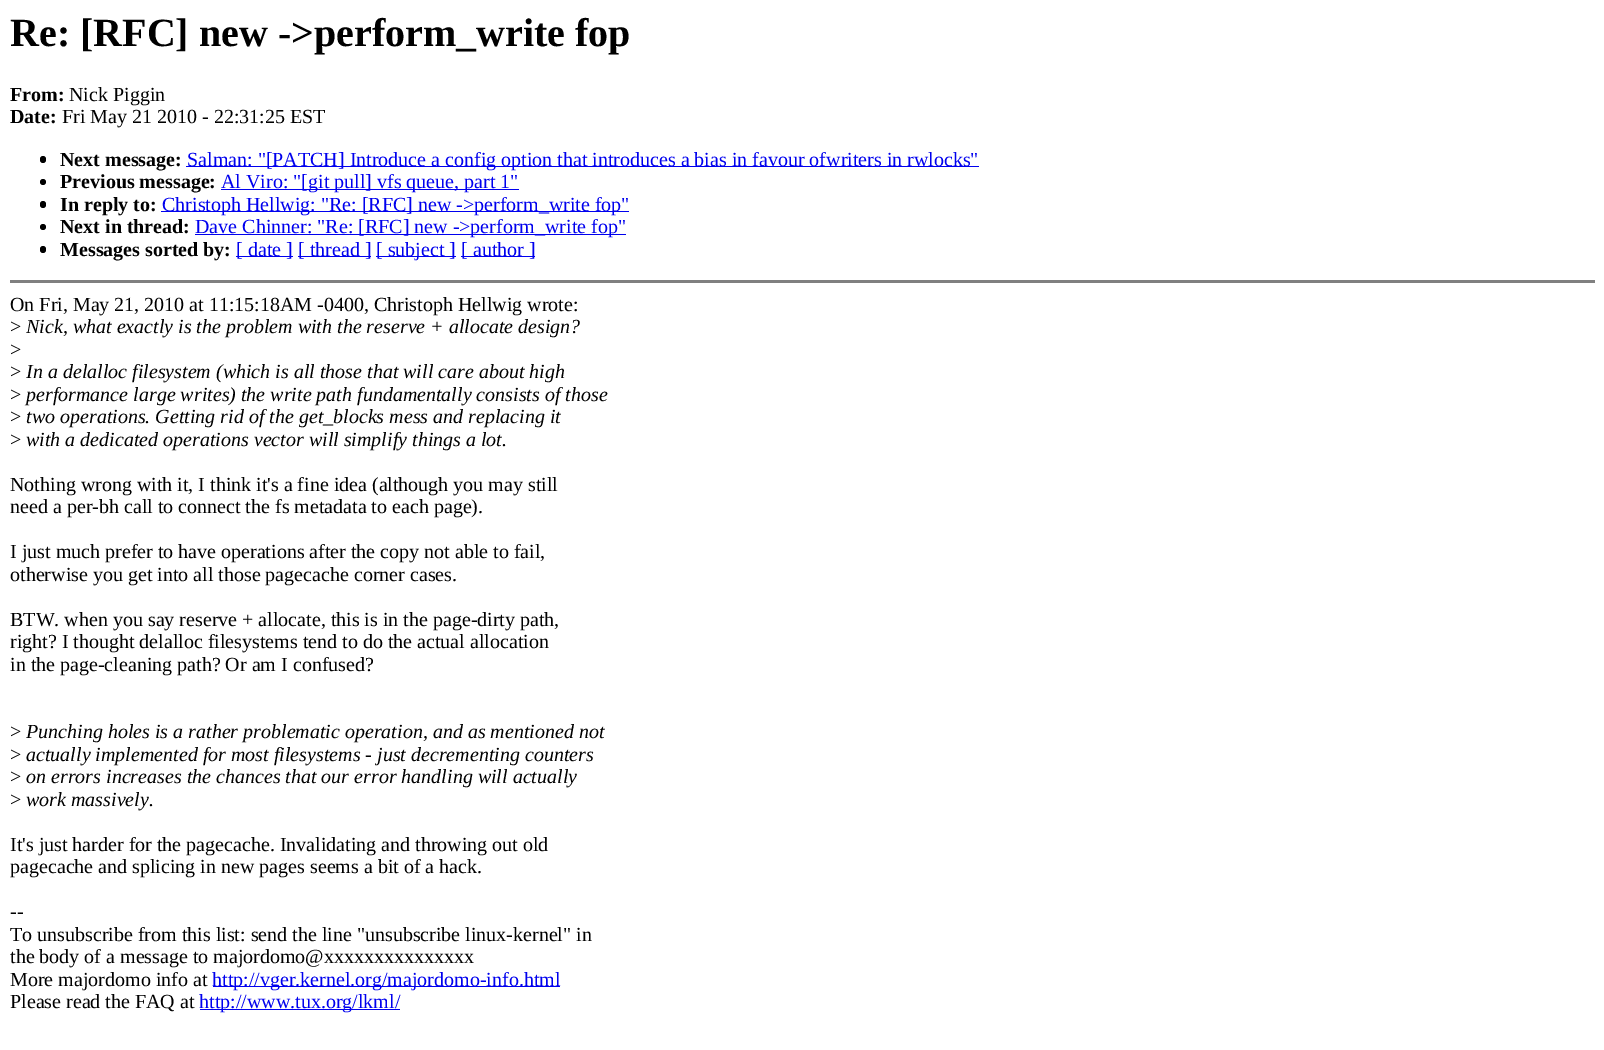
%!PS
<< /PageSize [1604 1050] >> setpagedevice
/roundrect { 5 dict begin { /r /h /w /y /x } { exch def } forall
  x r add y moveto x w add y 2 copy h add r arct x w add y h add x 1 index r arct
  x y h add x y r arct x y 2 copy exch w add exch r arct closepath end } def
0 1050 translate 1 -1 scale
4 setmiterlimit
1 setgray
0 0 1604 1050 rectfill
/LiberationSerif-Bold [40 0 0 -40 0 0] selectfont
0 setgray
10 46 moveto (Re: [RFC] new ->perform_write fop) show
/LiberationSerif-Bold [20 0 0 -20 0 0] selectfont
10 101 moveto (From:) show
/LiberationSerif-Regular [20 0 0 -20 0 0] selectfont
69 101 moveto (Nick Piggin) show
/LiberationSerif-Bold [20 0 0 -20 0 0] selectfont
10 123 moveto (Date:) show
/LiberationSerif-Regular [20 0 0 -20 0 0] selectfont
62 123 moveto (Fri May 21 2010 - 22:31:25 EST) show
40 156 6 7 3 roundrect fill
/LiberationSerif-Bold [20 0 0 -20 0 0] selectfont
60 166 moveto (Next message:) show
0 0 0.933 setrgbcolor
186 166 793 1 rectfill
/LiberationSerif-Regular [20 0 0 -20 0 0] selectfont
187 166 moveto (Salman: "[PATCH] Introduce a config option that introduces a bias in favour ofwriters in rwlocks") show
0 setgray
newpath 43 182 3 0 360 arc closepath fill
/LiberationSerif-Bold [20 0 0 -20 0 0] selectfont
60 188 moveto (Previous message:) show
0 0 0.933 setrgbcolor
221 189 298 1 rectfill
/LiberationSerif-Regular [20 0 0 -20 0 0] selectfont
221 188 moveto (Al Viro: "[git pull] vfs queue, part 1") show
0 setgray
40 201 6 7 3 roundrect fill
/LiberationSerif-Bold [20 0 0 -20 0 0] selectfont
60 211 moveto (In reply to:) show
0 0 0.933 setrgbcolor
161 211 468 1 rectfill
/LiberationSerif-Regular [20 0 0 -20 0 0] selectfont
162 211 moveto (Christoph Hellwig: "Re: [RFC] new ->perform_write fop") show
0 setgray
newpath 43 227 3 0 360 arc closepath fill
/LiberationSerif-Bold [20 0 0 -20 0 0] selectfont
60 233 moveto (Next in thread:) show
0 0 0.933 setrgbcolor
195 234 431 1 rectfill
/LiberationSerif-Regular [20 0 0 -20 0 0] selectfont
195 233 moveto (Dave Chinner: "Re: [RFC] new ->perform_write fop") show
0 setgray
40 246 6 7 3 roundrect fill
/LiberationSerif-Bold [20 0 0 -20 0 0] selectfont
60 256 moveto (Messages sorted by:) show
0 0 0.933 setrgbcolor
236 256 57 1 rectfill
/LiberationSerif-Regular [20 0 0 -20 0 0] selectfont
236 256 moveto ([ date ]) show
298 256 73 1 rectfill
298 256 moveto ([ thread ]) show
376 256 80 1 rectfill
376 256 moveto ([ subject ]) show
461 256 74 1 rectfill
461 256 moveto ([ author ]) show
0.502 setgray
10 280 1585 3 rectfill
0 setgray
10 311 moveto (On Fri, May 21, 2010 at 11:15:18AM -0400, Christoph Hellwig wrote:) show
10 333 moveto (>) show
/LiberationSerif-Italic [20 0 0 -20 0 0] selectfont
26 333 moveto (Nick, what exactly is the problem with the reserve + allocate design?) show
/LiberationSerif-Regular [20 0 0 -20 0 0] selectfont
10 356 moveto (>) show
10 378 moveto (>) show
/LiberationSerif-Italic [20 0 0 -20 0 0] selectfont
26 378 moveto (In a delalloc filesystem \(which is all those that will care about high) show
/LiberationSerif-Regular [20 0 0 -20 0 0] selectfont
10 401 moveto (>) show
/LiberationSerif-Italic [20 0 0 -20 0 0] selectfont
26 401 moveto (performance large writes\) the write path fundamentally consists of those) show
/LiberationSerif-Regular [20 0 0 -20 0 0] selectfont
10 423 moveto (>) show
/LiberationSerif-Italic [20 0 0 -20 0 0] selectfont
26 423 moveto (two operations. Getting rid of the get_blocks mess and replacing it) show
/LiberationSerif-Regular [20 0 0 -20 0 0] selectfont
10 446 moveto (>) show
/LiberationSerif-Italic [20 0 0 -20 0 0] selectfont
26 446 moveto (with a dedicated operations vector will simplify things a lot.) show
/LiberationSerif-Regular [20 0 0 -20 0 0] selectfont
10 491 moveto (Nothing wrong with it, I think it's a fine idea \(although you may still) show
10 513 moveto (need a per-bh call to connect the fs metadata to each page\).) show
10 558 moveto (I just much prefer to have operations after the copy not able to fail,) show
10 581 moveto (otherwise you get into all those pagecache corner cases.) show
10 626 moveto (BTW. when you say reserve + allocate, this is in the page-dirty path,) show
10 648 moveto (right? I thought delalloc filesystems tend to do the actual allocation) show
10 671 moveto (in the page-cleaning path? Or am I confused?) show
10 738 moveto (>) show
/LiberationSerif-Italic [20 0 0 -20 0 0] selectfont
26 738 moveto (Punching holes is a rather problematic operation, and as mentioned not) show
/LiberationSerif-Regular [20 0 0 -20 0 0] selectfont
10 761 moveto (>) show
/LiberationSerif-Italic [20 0 0 -20 0 0] selectfont
26 761 moveto (actually implemented for most filesystems - just decrementing counters) show
/LiberationSerif-Regular [20 0 0 -20 0 0] selectfont
10 783 moveto (>) show
/LiberationSerif-Italic [20 0 0 -20 0 0] selectfont
26 783 moveto (on errors increases the chances that our error handling will actually) show
/LiberationSerif-Regular [20 0 0 -20 0 0] selectfont
10 806 moveto (>) show
/LiberationSerif-Italic [20 0 0 -20 0 0] selectfont
26 806 moveto (work massively.) show
/LiberationSerif-Regular [20 0 0 -20 0 0] selectfont
10 851 moveto (It's just harder for the pagecache. Invalidating and throwing out old) show
10 873 moveto (pagecache and splicing in new pages seems a bit of a hack.) show
10 918 moveto (--) show
10 941 moveto (To unsubscribe from this list: send the line "unsubscribe linux-kernel" in) show
10 963 moveto (the body of a message to majordomo@xxxxxxxxxxxxxxx) show
10 986 moveto (More majordomo info at) show
0 0 0.933 setrgbcolor
213 986 347 1 rectfill
212 986 moveto (http://vger.kernel.org/majordomo-info.html) show
0 setgray
10 1008 moveto (Please read the FAQ at) show
0 0 0.933 setrgbcolor
200 1009 200 1 rectfill
199 1008 moveto (http://www.tux.org/lkml/) show
showpage
